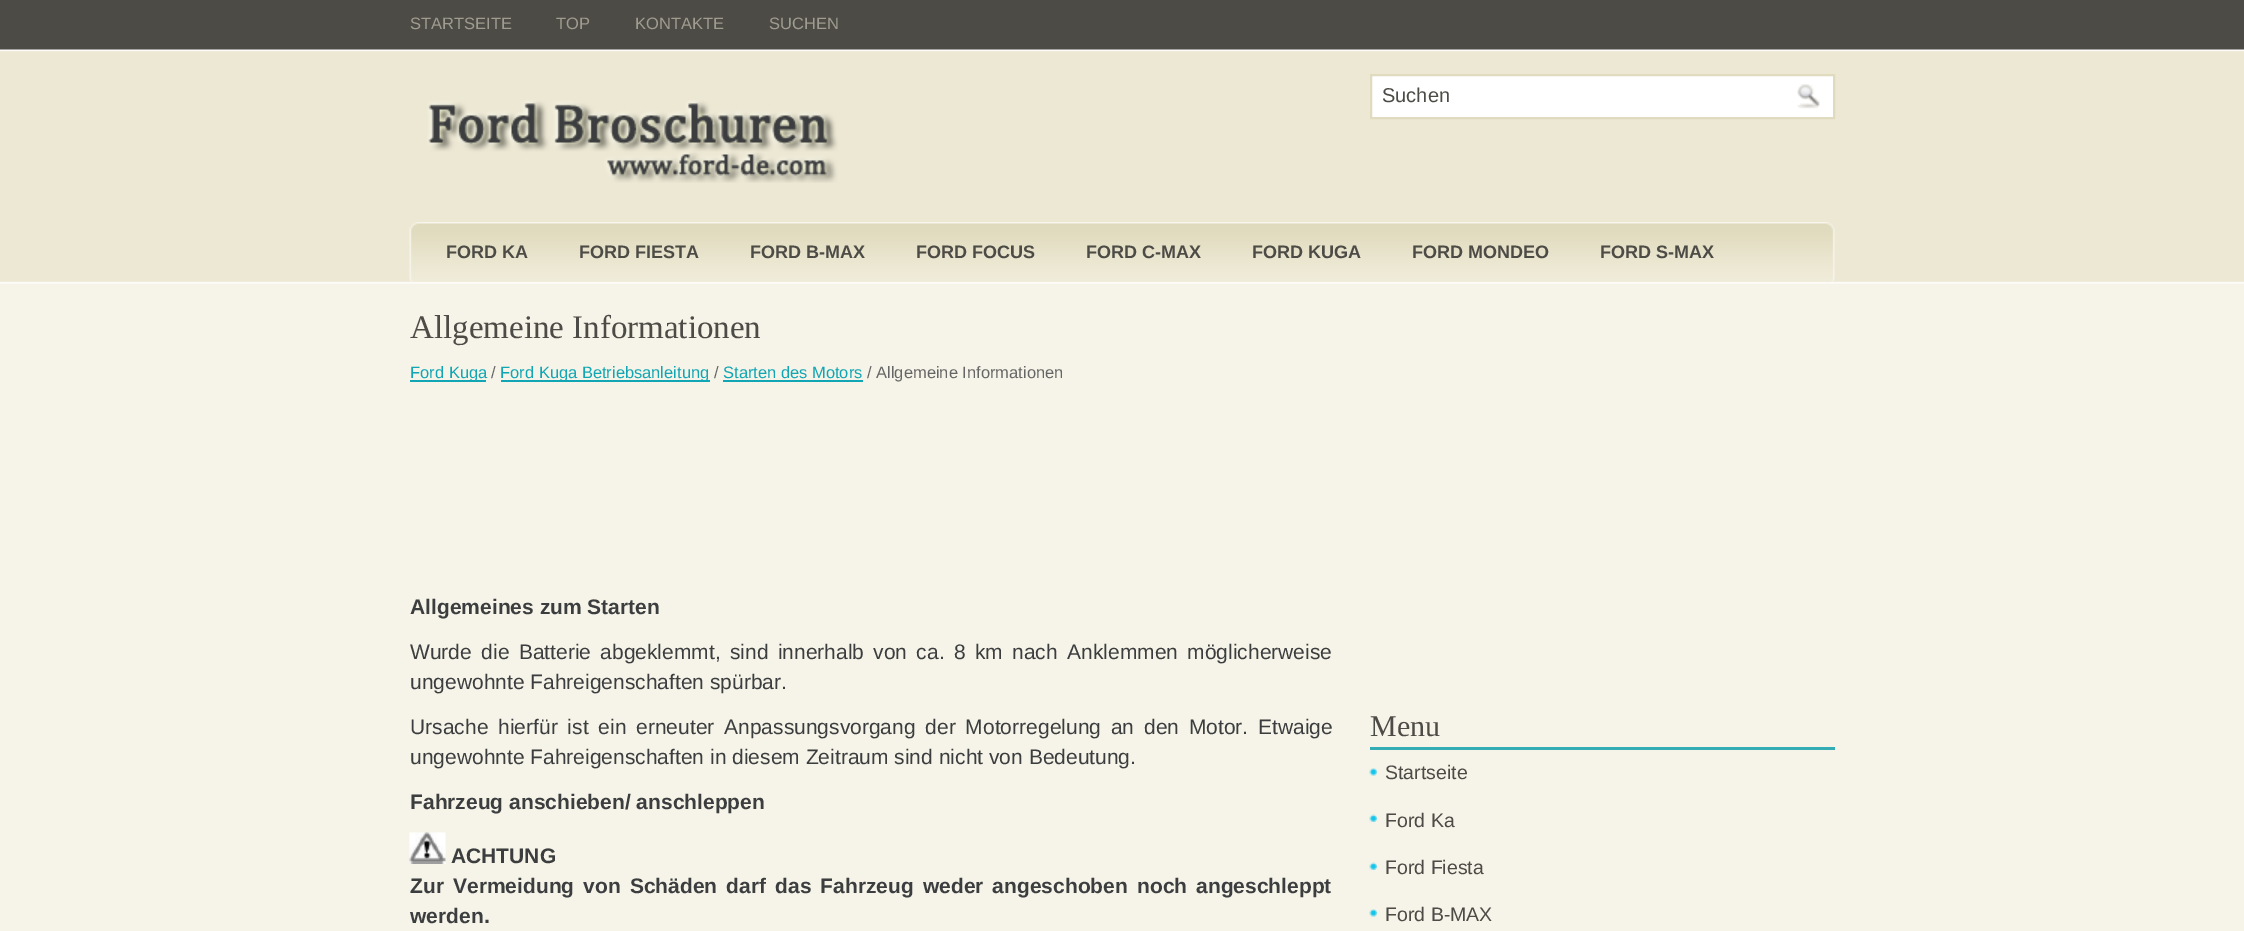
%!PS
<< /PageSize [2244 931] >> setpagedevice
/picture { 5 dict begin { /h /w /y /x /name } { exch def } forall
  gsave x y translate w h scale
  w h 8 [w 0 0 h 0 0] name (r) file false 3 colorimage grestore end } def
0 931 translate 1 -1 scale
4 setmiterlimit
0.965 0.957 0.91 setrgbcolor
0 0 2244 931 rectfill
(img1.rgb) 0 0 2244 284 picture
/LiberationSans-Regular [16.5 0 0 -16.5 0 0] selectfont
0.627 0.612 0.565 setrgbcolor
410 29 moveto (STARTSEITE) show
556 29 moveto (TOP) show
635 29 moveto (KONTAKTE) show
769 29 moveto (SUCHEN) show
1 setgray
newpath 1371 75 moveto 1834 75 lineto 1834 118 lineto 1371 118 lineto closepath gsave fill grestore
0.878 0.859 0.745 setrgbcolor
2 setlinewidth
stroke
/LiberationSans-Regular [20 0 0 -20 0 0] selectfont
0.302 0.294 0.275 setrgbcolor
1382 102 moveto (Suchen) show
(img2.rgb) 1797 84 23 25 picture
(img3.rgb) 427 100 411 83 picture
(img4.rgb) 409 222 1426 60 picture
/LiberationSans-Bold [18 0 0 -18 0 0] selectfont
446 258 moveto (FORD KA) show
579 258 moveto (FORD FIESTA) show
750 258 moveto (FORD B-MAX) show
916 258 moveto (FORD FOCUS) show
1086 258 moveto (FORD C-MAX) show
1252 258 moveto (FORD KUGA) show
1412 258 moveto (FORD MONDEO) show
1600 258 moveto (FORD S-MAX) show
/LiberationSerif-Regular [33 0 0 -33 0 0] selectfont
410 338 moveto (Allgemeine Informationen) show
0.067 0.651 0.702 setrgbcolor
410 380 76 2 rectfill
/LiberationSans-Regular [16.5 0 0 -16.5 0 0] selectfont
410 378 moveto (Ford Kuga) show
0.4 setgray
491 378 moveto (/) show
0.067 0.651 0.702 setrgbcolor
501 380 209 2 rectfill
500 378 moveto (Ford Kuga Betriebsanleitung) show
0.4 setgray
714 378 moveto (/) show
0.067 0.651 0.702 setrgbcolor
723 378 moveto (Starten des Motors) show
723 380 140 2 rectfill
0.4 setgray
867 378 moveto (/ Allgemeine Informationen) show
/LiberationSans-Bold [21 0 0 -21 0 0] selectfont
0.235 0.239 0.247 setrgbcolor
410 614 moveto (Allgemeines zum Starten) show
/LiberationSans-Regular [21 0 0 -21 0 0] selectfont
410 659 moveto 3.5 0 32 (Wurde die Batterie abgeklemmt, sind innerhalb von ca. 8 km nach Anklemmen möglicherweise) widthshow
410 689 moveto (ungewohnte Fahreigenschaften spürbar.) show
410 734 moveto 4 0 32 (Ursache hierfür ist ein erneuter Anpassungsvorgang der Motorregelung an den Motor. Etwaige) widthshow
410 764 moveto (ungewohnte Fahreigenschaften in diesem Zeitraum sind nicht von Bedeutung.) show
/LiberationSans-Bold [21 0 0 -21 0 0] selectfont
410 809 moveto (Fahrzeug anschieben/ anschleppen) show
(img5.rgb) 409 832 37 32 picture
451 863 moveto (ACHTUNG) show
410 893 moveto 3.25 0 32 (Zur Vermeidung von Schäden darf das Fahrzeug weder angeschoben noch angeschleppt) widthshow
410 923 moveto (werden.) show
0.2 0.675 0.702 setrgbcolor
1370 747 465 3 rectfill
/LiberationSerif-Regular [30 0 0 -30 0 0] selectfont
0.302 0.294 0.275 setrgbcolor
1370 736 moveto (Menu) show
(img6.rgb) 1369 768 8 8 picture
/LiberationSans-Regular [19.5 0 0 -19.5 0 0] selectfont
1385 779 moveto (Startseite) show
(img7.rgb) 1369 814 8 8 picture
1385 827 moveto (Ford Ka) show
(img7.rgb) 1369 862 8 8 picture
1385 874 moveto (Ford Fiesta) show
(img6.rgb) 1369 909 8 8 picture
1385 921 moveto (Ford B-MAX) show
showpage
